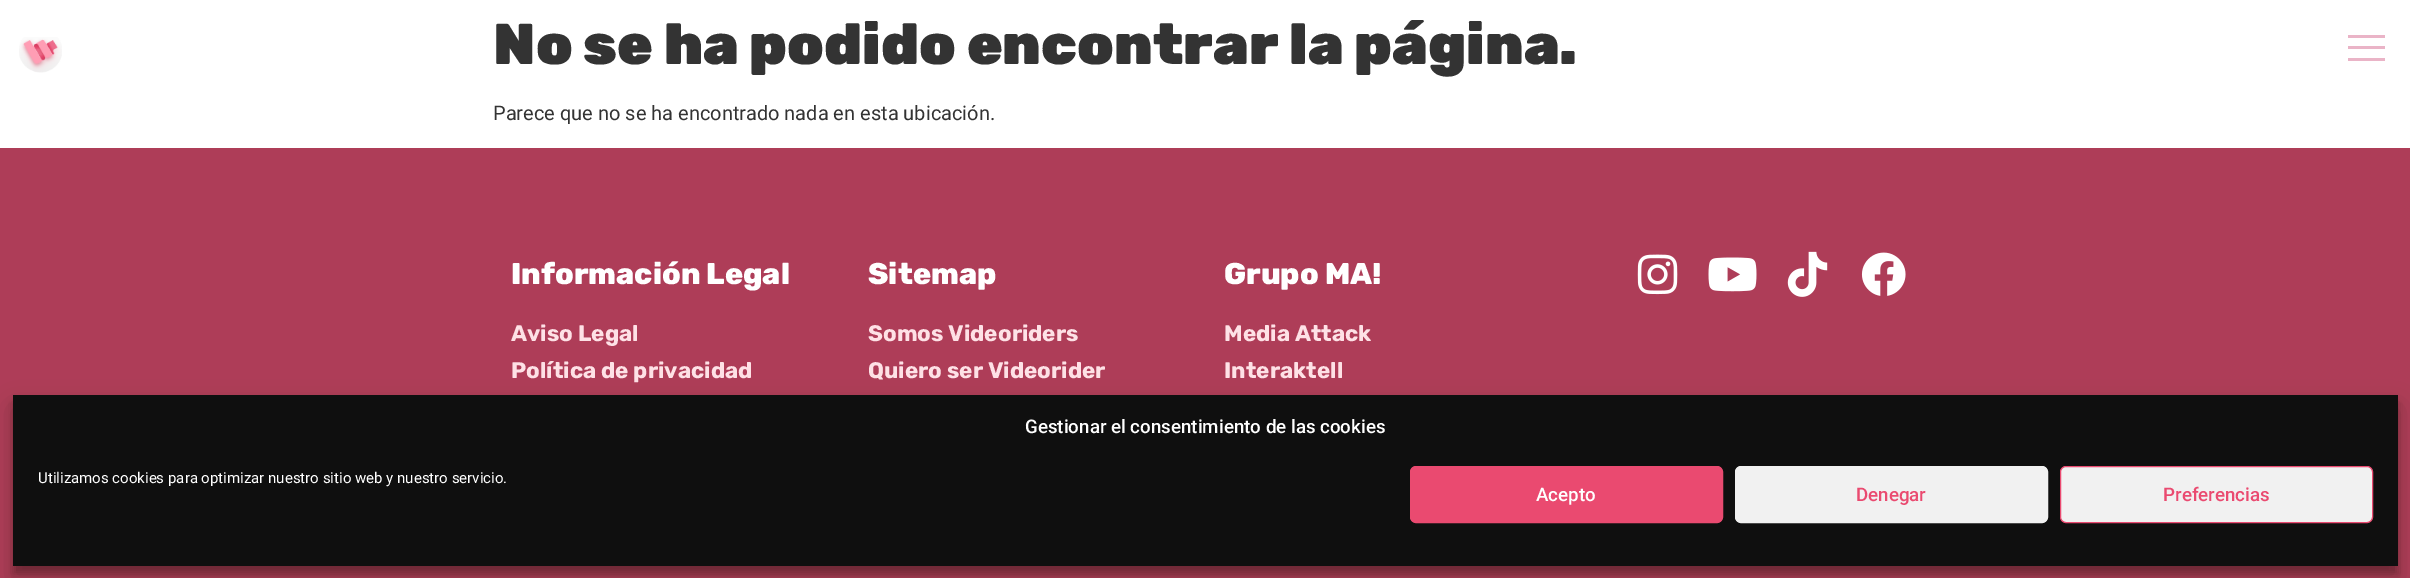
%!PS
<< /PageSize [2410 578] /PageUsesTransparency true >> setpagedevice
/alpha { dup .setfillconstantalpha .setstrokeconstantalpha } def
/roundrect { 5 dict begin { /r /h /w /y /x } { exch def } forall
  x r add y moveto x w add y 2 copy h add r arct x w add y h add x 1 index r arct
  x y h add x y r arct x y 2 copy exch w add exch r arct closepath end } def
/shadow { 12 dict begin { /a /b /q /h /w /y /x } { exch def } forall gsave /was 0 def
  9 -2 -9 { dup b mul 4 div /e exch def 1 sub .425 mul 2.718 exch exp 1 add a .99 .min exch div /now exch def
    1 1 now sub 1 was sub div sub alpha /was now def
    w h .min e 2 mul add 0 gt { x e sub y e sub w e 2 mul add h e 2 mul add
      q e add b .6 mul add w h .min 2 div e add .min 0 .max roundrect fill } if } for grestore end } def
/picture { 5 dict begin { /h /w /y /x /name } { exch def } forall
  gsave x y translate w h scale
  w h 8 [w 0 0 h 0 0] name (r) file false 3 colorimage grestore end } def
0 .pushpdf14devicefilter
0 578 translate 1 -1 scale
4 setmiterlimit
1 setgray
0 0 2410 578 rectfill
(img1.rgb) 19 37 43 36 picture
/Rubik-Black [57.5 0 0 -57.5 0 0] selectfont
0.2 setgray
493 64 moveto (No se ha podido encontrar la página.) show
/Roboto-Regular [20 0 0 -20 0 0] selectfont
493 120 moveto (Parece que no se ha encontrado nada en esta ubicación.) show
0.918 0.706 0.78 setrgbcolor
2348 35 37 3 rectfill
2348 46 37 3 rectfill
2348 58 37 3 rectfill
0.682 0.239 0.345 setrgbcolor
0 148 2410 430 rectfill
/Rubik-ExtraBold [30 0 0 -30 0 0] selectfont
1 setgray
511 284 moveto (Información Legal) show
/Rubik-Bold [22.5 0 0 -22.5 0 0] selectfont
0.996 0.882 0.902 setrgbcolor
511 341 moveto (Aviso Legal) show
511 378 moveto (Política de privacidad) show
/Rubik-ExtraBold [30 0 0 -30 0 0] selectfont
1 setgray
868 284 moveto (Sitemap) show
/Rubik-Bold [22.5 0 0 -22.5 0 0] selectfont
0.996 0.882 0.902 setrgbcolor
868 341 moveto (Somos Videoriders) show
868 378 moveto (Quiero ser Videorider) show
/Rubik-ExtraBold [30 0 0 -30 0 0] selectfont
1 setgray
1224 284 moveto (Grupo MA!) show
/Rubik-Bold [22.5 0 0 -22.5 0 0] selectfont
0.996 0.882 0.902 setrgbcolor
1224 341 moveto (Media Attack) show
1224 378 moveto (Interaktell) show
(img2.rgb) 1637 254 41 41 picture
(img3.rgb) 1708 257 49 35 picture
(img4.rgb) 1787 251 41 46 picture
(img5.rgb) 1861 252 45 44 picture
0 setgray
13 403 2385 171 0 4 0.23 shadow
13 408 2385 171 0 12.5 0.19 shadow
0.059 setgray
13 395 2385 171 rectfill
/Roboto-Medium [18.75 0 0 -18.75 0 0] selectfont
1 setgray
1025 433 moveto (Gestionar el consentimiento de las cookies) show
/Roboto-Regular [15 0 0 -15 0 0] selectfont
38 483 moveto (Utilizamos cookies para optimizar nuestro sitio web y nuestro servicio.) show
0.918 0.29 0.439 setrgbcolor
1410.5 466.5 312 56 5.5 roundrect gsave fill grestore
stroke
/Roboto-Medium [18.75 0 0 -18.75 0 0] selectfont
1 setgray
1536 501 moveto (Acepto) show
0.945 setgray
1735.5 466.5 312 56 5.5 roundrect gsave fill grestore
stroke
0.918 0.29 0.439 setrgbcolor
1856 501 moveto (Denegar) show
0.945 setgray
2060.5 466.5 312 56 5.5 roundrect gsave fill grestore
0.918 0.29 0.439 setrgbcolor
stroke
2163 501 moveto (Preferencias) show
.poppdf14devicefilter showpage
